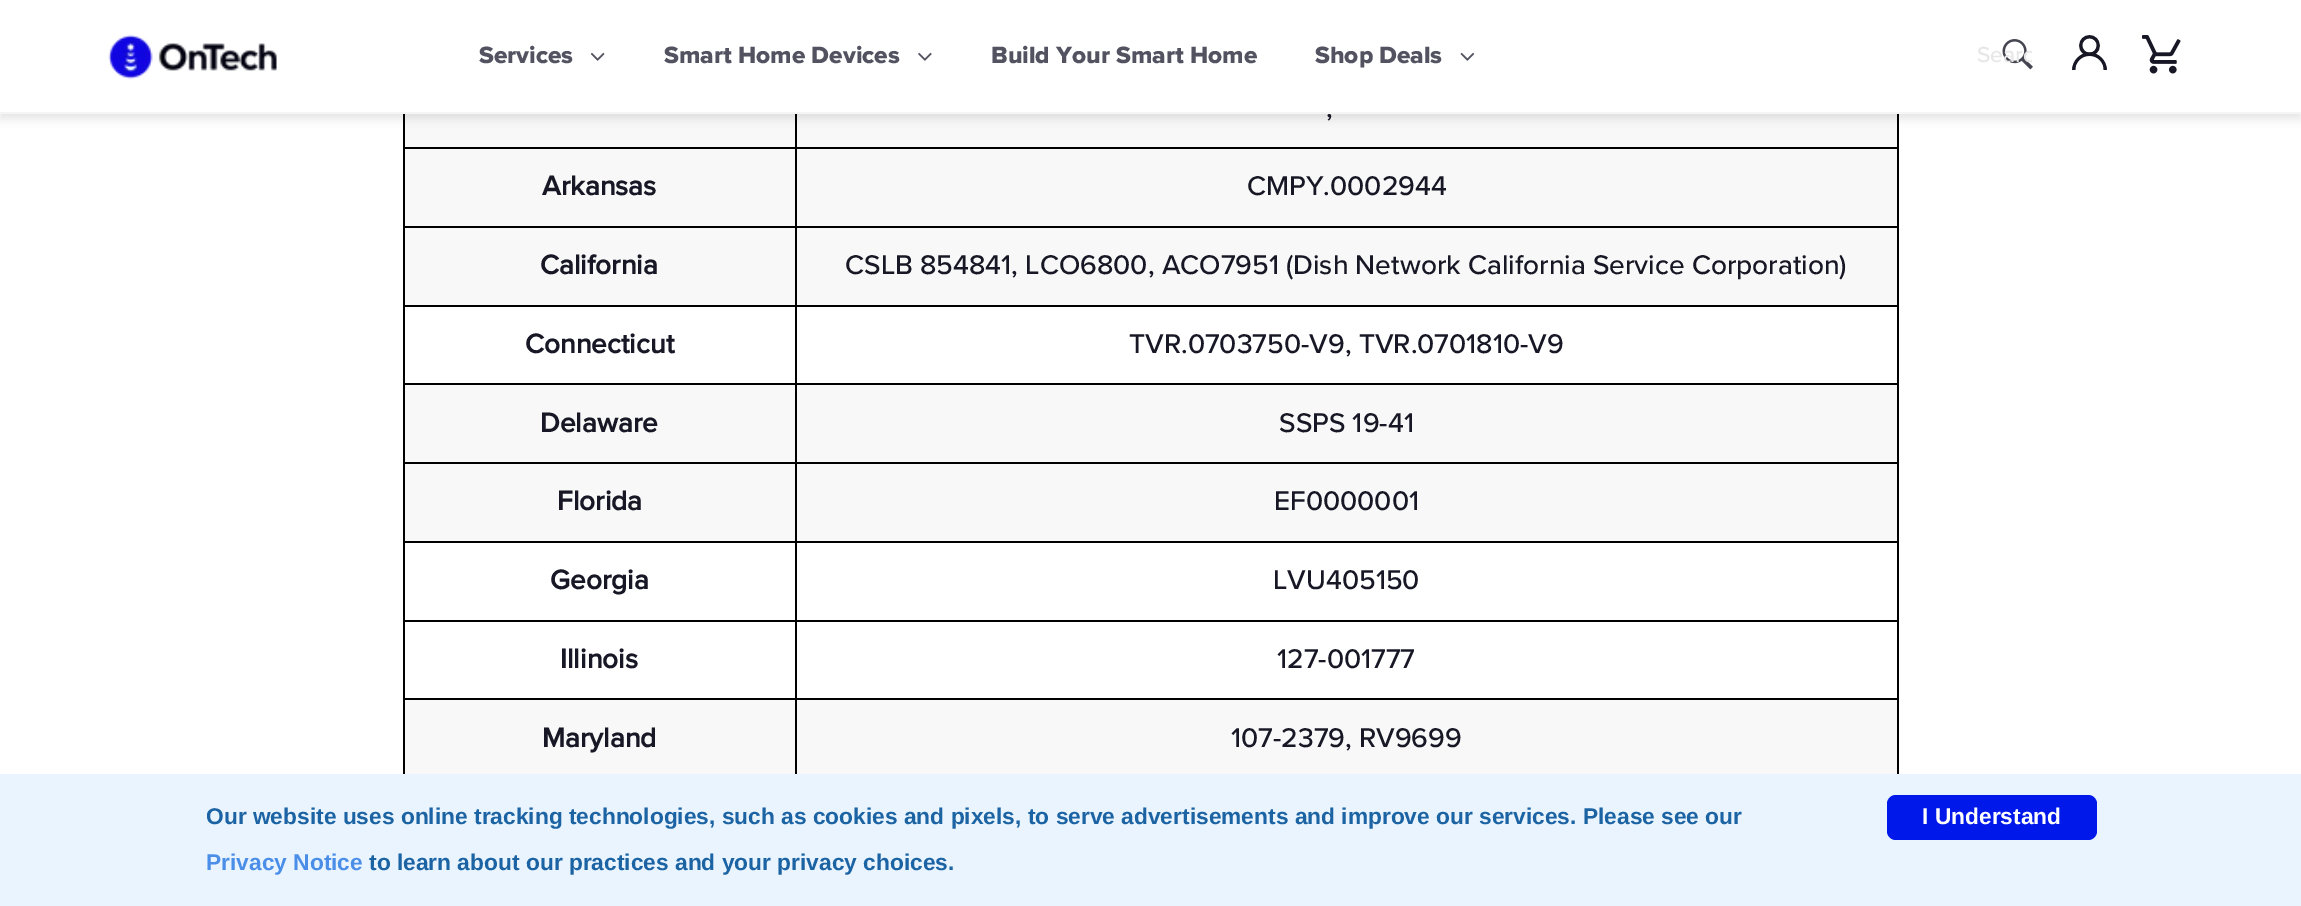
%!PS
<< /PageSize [2301 906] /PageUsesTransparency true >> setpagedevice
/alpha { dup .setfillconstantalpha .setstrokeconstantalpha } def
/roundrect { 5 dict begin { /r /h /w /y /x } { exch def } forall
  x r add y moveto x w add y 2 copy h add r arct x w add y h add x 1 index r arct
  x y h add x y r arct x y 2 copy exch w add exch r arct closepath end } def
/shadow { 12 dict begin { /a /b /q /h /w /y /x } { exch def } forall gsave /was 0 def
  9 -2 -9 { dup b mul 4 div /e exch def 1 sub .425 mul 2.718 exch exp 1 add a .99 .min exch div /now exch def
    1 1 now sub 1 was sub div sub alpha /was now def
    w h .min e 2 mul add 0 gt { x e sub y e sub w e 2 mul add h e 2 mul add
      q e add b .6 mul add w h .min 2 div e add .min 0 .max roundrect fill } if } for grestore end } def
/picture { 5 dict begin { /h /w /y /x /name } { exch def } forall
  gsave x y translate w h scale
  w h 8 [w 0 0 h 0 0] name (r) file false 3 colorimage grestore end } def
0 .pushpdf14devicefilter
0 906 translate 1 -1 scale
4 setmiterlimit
1 setgray
0 0 2301 906 rectfill
0.973 setgray
405 114 1492 33 rectfill
0 setgray
795 147 1104 2 rectfill
0.973 setgray
405 149 1492 77 rectfill
0 setgray
795 226 1104 2 rectfill
0.973 setgray
405 228 1492 77 rectfill
0 setgray
795 305 1104 2 rectfill
795 383 1104 2 rectfill
0.973 setgray
405 385 1492 77 rectfill
0 setgray
795 462 1104 2 rectfill
0.973 setgray
405 464 1492 77 rectfill
0 setgray
795 541 1104 2 rectfill
795 620 1104 2 rectfill
795 698 1104 2 rectfill
0.973 setgray
405 700 1492 74 rectfill
0 setgray
795 698 2 81 rectfill
403 698 393 2 rectfill
795 620 2 80 rectfill
403 620 393 2 rectfill
795 541 2 80 rectfill
403 541 393 2 rectfill
795 462 2 81 rectfill
403 462 393 2 rectfill
795 383 2 81 rectfill
403 383 393 2 rectfill
795 305 2 80 rectfill
403 305 393 2 rectfill
795 226 2 80 rectfill
403 226 393 2 rectfill
795 147 2 81 rectfill
403 147 393 2 rectfill
795 114 2 35 rectfill
403 698 2 81 rectfill
403 620 2 80 rectfill
403 541 2 80 rectfill
403 462 2 81 rectfill
403 383 2 81 rectfill
403 305 2 80 rectfill
403 226 2 80 rectfill
403 114 2 114 rectfill
1897 698 2 81 rectfill
1897 620 2 80 rectfill
1897 541 2 80 rectfill
1897 462 2 81 rectfill
1897 383 2 81 rectfill
1897 305 2 80 rectfill
1897 226 2 80 rectfill
1897 114 2 114 rectfill
0 5 2301 114 0 4.5 0.1 shadow
1 setgray
0 0 2301 112 rectfill
/ProximaNova-Medium [28 0 0 -28 0 0] selectfont
0.09 0.09 0.145 setrgbcolor
1326 117 moveto (,) show
0.961 0.961 0.965 setrgbcolor
0 112 2301 2 rectfill
(img1.rgb) 108 34 169 46 picture
/ProximaNova-ExtraBold [24.5 0 0 -24.5 0 0] selectfont
0.322 0.322 0.38 setrgbcolor
479 63 moveto (Services) show
(img2.rgb) 590 52 15 9 picture
664 63 moveto (Smart Home Devices) show
(img3.rgb) 918 52 14 9 picture
991 63 moveto (Build Your Smart Home) show
1315 63 moveto (Shop Deals) show
(img4.rgb) 1460 52 15 9 picture
(img5.rgb) 2002 39 31 31 picture
gsave
1976 46 56 22 rectclip
/ProximaNova-Medium [22.75 0 0 -22.75 0 0] selectfont
0.906 0.906 0.91 setrgbcolor
1977 62 moveto (Searc) show
grestore
(img6.rgb) 2072 35 35 35 picture
(img7.rgb) 2142 35 39 39 picture
/ProximaNova-Bold [28 0 0 -28 0 0] selectfont
0.09 0.09 0.145 setrgbcolor
542 195 moveto (Arkansas) show
/ProximaNova-Medium [28 0 0 -28 0 0] selectfont
1247 195 moveto (CMPY.0002944) show
/ProximaNova-Bold [28 0 0 -28 0 0] selectfont
540 274 moveto (California) show
/ProximaNova-Medium [28 0 0 -28 0 0] selectfont
845 274 moveto (CSLB 854841, LCO6800, ACO7951 \(Dish Network California Service Corporation\)) show
/ProximaNova-Bold [28 0 0 -28 0 0] selectfont
525 353 moveto (Connecticut) show
/ProximaNova-Medium [28 0 0 -28 0 0] selectfont
1129 353 moveto (TVR.0703750-V9, TVR.0701810-V9) show
/ProximaNova-Bold [28 0 0 -28 0 0] selectfont
540 432 moveto (Delaware) show
/ProximaNova-Medium [28 0 0 -28 0 0] selectfont
1279 432 moveto (SSPS 19-41) show
/ProximaNova-Bold [28 0 0 -28 0 0] selectfont
557 510 moveto (Florida) show
/ProximaNova-Medium [28 0 0 -28 0 0] selectfont
1274 510 moveto (EF0000001) show
/ProximaNova-Bold [28 0 0 -28 0 0] selectfont
550 589 moveto (Georgia) show
/ProximaNova-Medium [28 0 0 -28 0 0] selectfont
1273 589 moveto (LVU405150) show
/ProximaNova-Bold [28 0 0 -28 0 0] selectfont
560 668 moveto (Illinois) show
/ProximaNova-Medium [28 0 0 -28 0 0] selectfont
1277 668 moveto (127-001777) show
/ProximaNova-Bold [28 0 0 -28 0 0] selectfont
542 747 moveto (Maryland) show
/ProximaNova-Medium [28 0 0 -28 0 0] selectfont
1231 747 moveto (107-2379, RV9699) show
0.914 0.957 1 setrgbcolor
0 774 2301 132 rectfill
/LiberationSans-Bold [22.75 0 0 -22.75 0 0] selectfont
0.106 0.388 0.639 setrgbcolor
206 824 moveto (Our website uses online tracking technologies, such as cookies and pixels, to serve advertisements and improve our services. Please see our) show
0.294 0.557 0.906 setrgbcolor
206 870 moveto (Privacy Notice) show
0.106 0.388 0.639 setrgbcolor
369 870 moveto (to learn about our practices and your privacy choices.) show
0 0.094 0.918 setrgbcolor
1887 795 210 45 9 roundrect fill
1 setgray
1922 824 moveto (I Understand) show
.poppdf14devicefilter showpage
